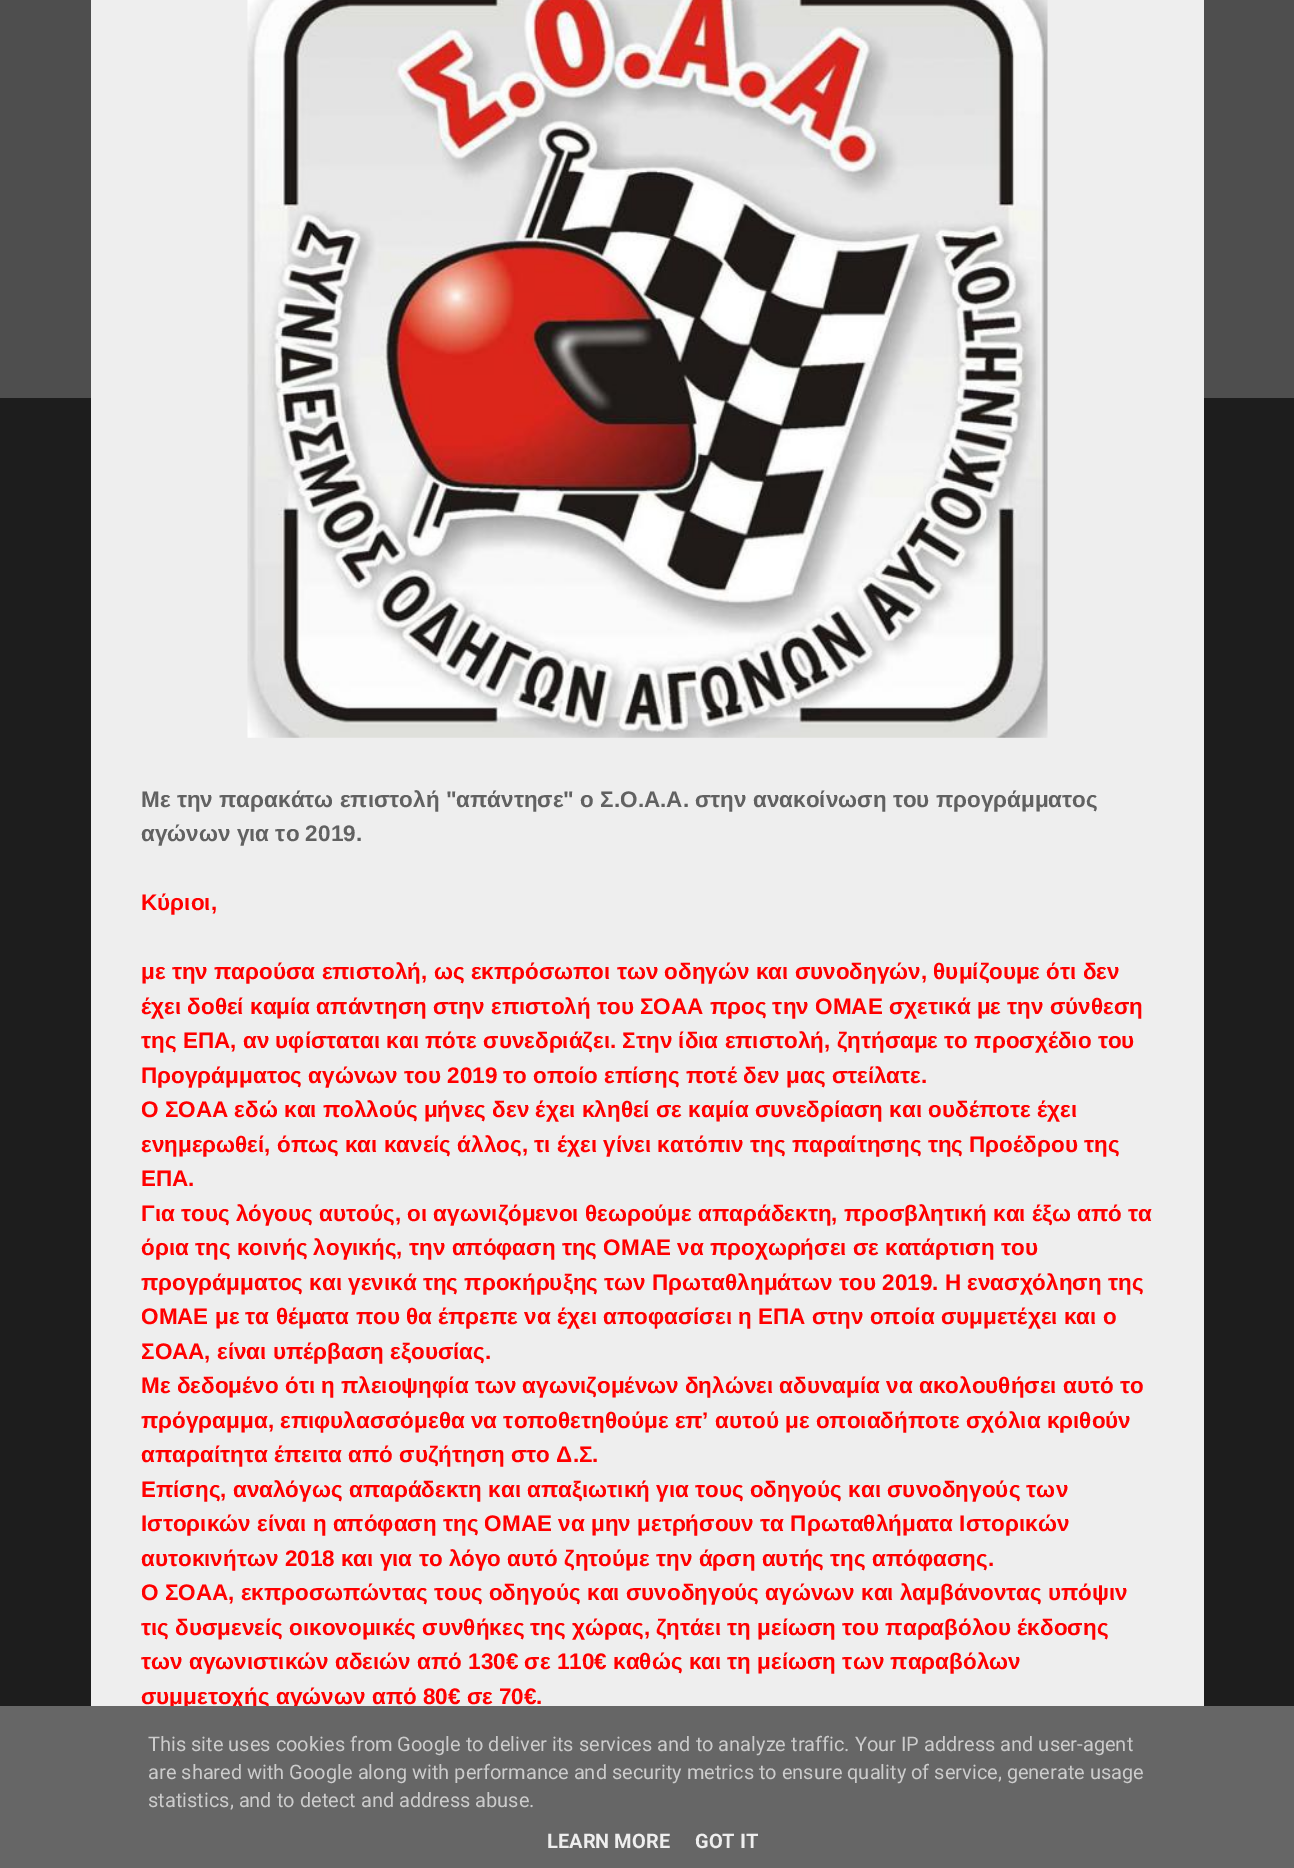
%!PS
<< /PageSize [1294 1868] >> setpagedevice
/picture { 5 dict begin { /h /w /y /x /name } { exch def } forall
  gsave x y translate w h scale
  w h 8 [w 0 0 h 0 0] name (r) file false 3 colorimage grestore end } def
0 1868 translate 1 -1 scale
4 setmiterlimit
0.114 setgray
0 0 1294 1868 rectfill
0.306 setgray
0 0 1294 398 rectfill
0.933 setgray
91 0 1113 1706 rectfill
(img1.rgb) 247 0 801 738 picture
/LiberationSans-Bold [22.5 0 0 -22.5 0 0] selectfont
0.38 setgray
141 807 moveto (Με την παρακάτω επιστολή "απάντησε" ο Σ.Ο.Α.Α. στην ανακοίνωση του προγράμματος) show
141 841 moveto (αγώνων για το 2019.) show
1 0 0 setrgbcolor
141 910 moveto (Κύριοι,) show
141 979 moveto (με την παρούσα επιστολή, ως εκπρόσωποι των οδηγών και συνοδηγών, θυμίζουμε ότι δεν) show
141 1014 moveto (έχει δοθεί καμία απάντηση στην επιστολή του ΣΟΑΑ προς την ΟΜΑΕ σχετικά με την σύνθεση) show
141 1048 moveto (της ΕΠΑ, αν υφίσταται και πότε συνεδριάζει. Στην ίδια επιστολή, ζητήσαμε το προσχέδιο του) show
141 1083 moveto (Προγράμματος αγώνων του 2019 το οποίο επίσης ποτέ δεν μας στείλατε.) show
141 1117 moveto (Ο ΣΟΑΑ εδώ και πολλούς μήνες δεν έχει κληθεί σε καμία συνεδρίαση και ουδέποτε έχει) show
141 1152 moveto (ενημερωθεί, όπως και κανείς άλλος, τι έχει γίνει κατόπιν της παραίτησης της Προέδρου της) show
141 1186 moveto (ΕΠΑ.) show
141 1221 moveto (Για τους λόγους αυτούς, οι αγωνιζόμενοι θεωρούμε απαράδεκτη, προσβλητική και έξω από τα) show
141 1255 moveto (όρια της κοινής λογικής, την απόφαση της ΟΜΑΕ να προχωρήσει σε κατάρτιση του) show
141 1290 moveto (προγράμματος και γενικά της προκήρυξης των Πρωταθλημάτων του 2019. Η ενασχόληση της) show
141 1324 moveto (ΟΜΑΕ με τα θέματα που θα έπρεπε να έχει αποφασίσει η ΕΠΑ στην οποία συμμετέχει και ο) show
141 1359 moveto (ΣΟΑΑ, είναι υπέρβαση εξουσίας.) show
141 1393 moveto (Με δεδομένο ότι η πλειοψηφία των αγωνιζομένων δηλώνει αδυναμία να ακολουθήσει αυτό το) show
141 1428 moveto (πρόγραμμα, επιφυλασσόμεθα να τοποθετηθούμε επ’ αυτού με οποιαδήποτε σχόλια κριθούν) show
141 1462 moveto (απαραίτητα έπειτα από συζήτηση στο Δ.Σ.) show
141 1497 moveto (Επίσης, αναλόγως απαράδεκτη και απαξιωτική για τους οδηγούς και συνοδηγούς των) show
141 1531 moveto (Ιστορικών είναι η απόφαση της ΟΜΑΕ να μην μετρήσουν τα Πρωταθλήματα Ιστορικών) show
141 1566 moveto (αυτοκινήτων 2018 και για το λόγο αυτό ζητούμε την άρση αυτής της απόφασης.) show
141 1600 moveto (Ο ΣΟΑΑ, εκπροσωπώντας τους οδηγούς και συνοδηγούς αγώνων και λαμβάνοντας υπόψιν) show
141 1635 moveto (τις δυσμενείς οικονομικές συνθήκες της χώρας, ζητάει τη μείωση του παραβόλου έκδοσης) show
141 1669 moveto (των αγωνιστικών αδειών από 130€ σε 110€ καθώς και τη μείωση των παραβόλων) show
141 1704 moveto (συμμετοχής αγώνων από 80€ σε 70€.) show
0.4 setgray
0 1706 1294 162 rectfill
/Roboto-Regular [20 0 0 -20 0 0] selectfont
0.8 setgray
148 1751 moveto (This site uses cookies from Google to deliver its services and to analyze traffic. Your IP address and user-agent) show
148 1779 moveto (are shared with Google along with performance and security metrics to ensure quality of service, generate usage) show
148 1807 moveto (statistics, and to detect and address abuse.) show
/Roboto-Bold [20 0 0 -20 0 0] selectfont
0.933 setgray
547 1848 moveto (LEARN MORE) show
695 1848 moveto (GOT IT) show
showpage
